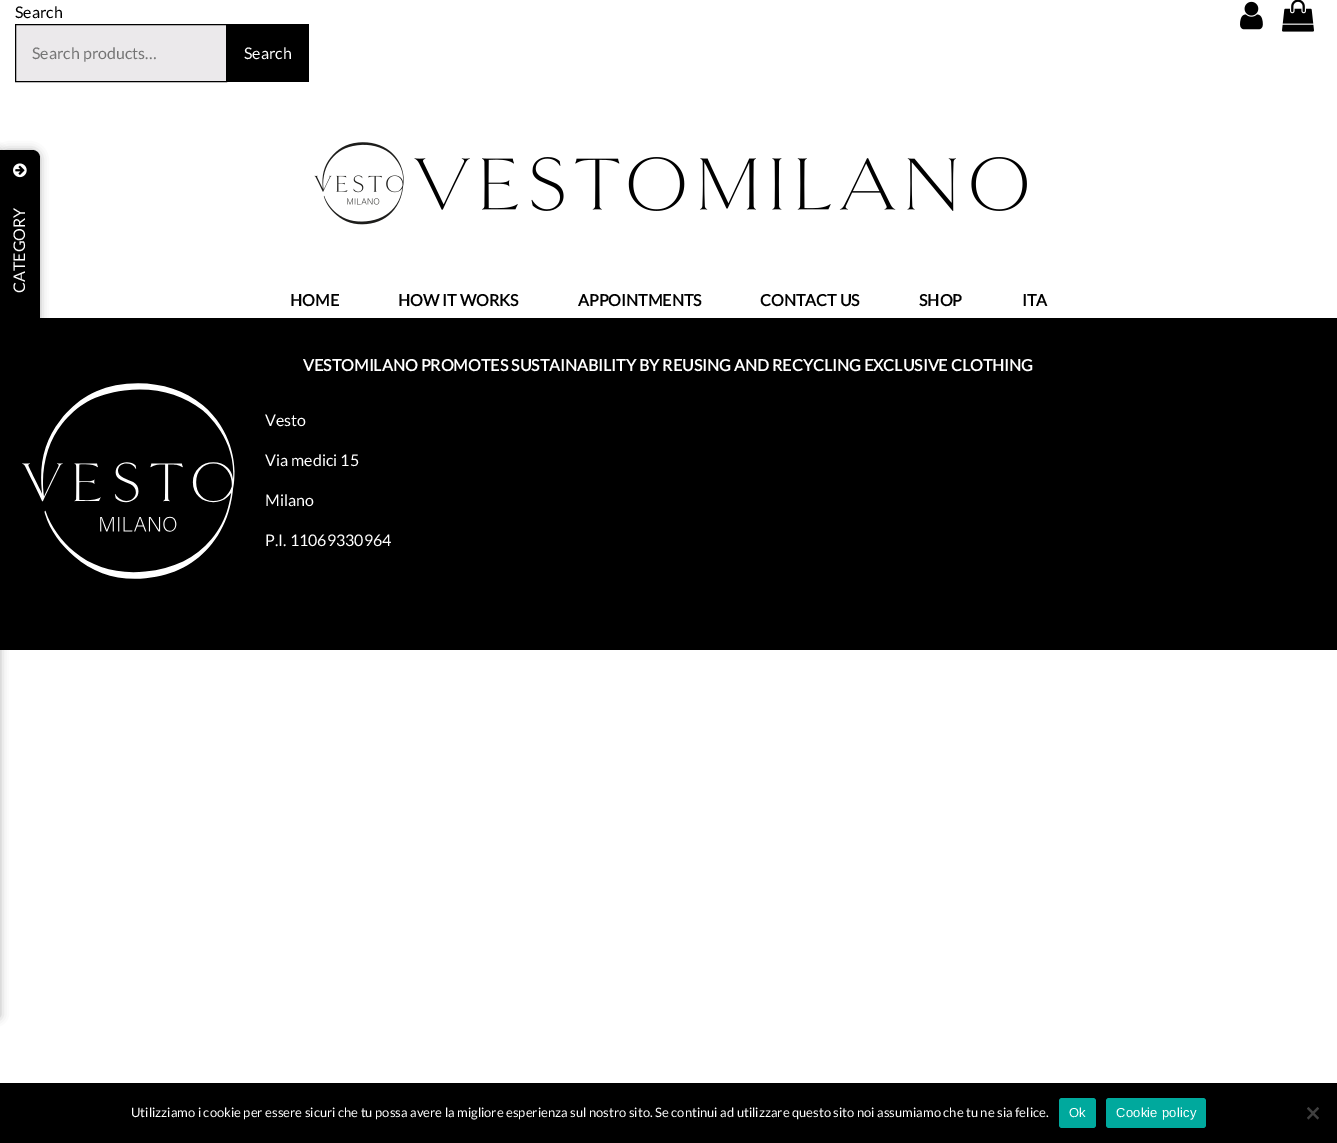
%!PS
<< /PageSize [1337 1143] /PageUsesTransparency true >> setpagedevice
/alpha { dup .setfillconstantalpha .setstrokeconstantalpha } def
/roundrect { 5 dict begin { /r /h /w /y /x } { exch def } forall
  x r add y moveto x w add y 2 copy h add r arct x w add y h add x 1 index r arct
  x y h add x y r arct x y 2 copy exch w add exch r arct closepath end } def
/shadow { 12 dict begin { /a /b /q /h /w /y /x } { exch def } forall gsave /was 0 def
  9 -2 -9 { dup b mul 4 div /e exch def 1 sub .425 mul 2.718 exch exp 1 add a .99 .min exch div /now exch def
    1 1 now sub 1 was sub div sub alpha /was now def
    w h .min e 2 mul add 0 gt { x e sub y e sub w e 2 mul add h e 2 mul add
      q e add b .6 mul add w h .min 2 div e add .min 0 .max roundrect fill } if } for grestore end } def
/picture { 5 dict begin { /h /w /y /x /name } { exch def } forall
  gsave x y translate w h scale
  w h 8 [w 0 0 h 0 0] name (r) file false 3 colorimage grestore end } def
0 .pushpdf14devicefilter
0 1143 translate 1 -1 scale
4 setmiterlimit
1 setgray
0 0 1337 1143 rectfill
/Lato-Regular [16 0 0 -16 0 0] selectfont
0 setgray
15 18 moveto (Search) show
0.922 0.914 0.922 setrgbcolor
newpath 15.5 24.5 moveto 226.5 24.5 lineto 226.5 81.5 lineto 15.5 81.5 lineto closepath gsave fill grestore
0 setgray
stroke
0.459 setgray
32 59 moveto (Search products…) show
0 setgray
227 24 82 58 rectfill
1 setgray
244 59 moveto (Search) show
(img1.rgb) 1240 1 23 29 picture
(img2.rgb) 1282 0 32 32 picture
(img3.rgb) 314 142 713 83 picture
0 setgray
40 318 1297 2 rectfill
/Lato-Bold [16 0 0 -16 0 0] selectfont
290 306 moveto (HOME) show
398 306 moveto (HOW IT WORKS) show
578 306 moveto (APPOINTMENTS) show
760 306 moveto (CONTACT US) show
919 306 moveto (SHOP) show
1022 306 moveto (ITA) show
0 320 1337 330 rectfill
-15 152 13 864 0 5 0.45 shadow
2 152 36 176 6 5 0.45 shadow
newpath 0 150 moveto 32 150 lineto 36.5 150 40 153.5 40 158 curveto 40 322 lineto 40 326.5 36.5 330 32 330 curveto 0 330 lineto closepath fill
(img4.rgb) 13 163 14 15 picture
/Lato-Regular [16 0 0 -16 0 0] selectfont
1 setgray
gsave 25 293 translate -90 rotate 0 0 moveto (CATEGORY) show grestore
/Lato-Bold [16 0 0 -16 0 0] selectfont
303 371 moveto (VESTOMILANO PROMOTES SUSTAINABILITY BY REUSING AND RECYCLING EXCLUSIVE CLOTHING) show
(img5.rgb) 22 383 213 196 picture
/Lato-Regular [16 0 0 -16 0 0] selectfont
265 426 moveto (Vesto) show
265 466 moveto (Via medici 15) show
265 506 moveto (Milano) show
265 546 moveto (P.I. 11069330964) show
0 setgray
0 1083 1337 60 rectfill
/Lato-Regular [13 0 0 -13 0 0] selectfont
1 setgray
131 1117 moveto (Utilizziamo i cookie per essere sicuri che tu possa avere la migliore esperienza sul nostro sito. Se continui ad utilizzare questo sito noi assumiamo che tu ne sia felice.) show
0 0.663 0.616 setrgbcolor
1059 1098 37 30 3 roundrect fill
/LiberationSans-Regular [13 0 0 -13 0 0] selectfont
1 setgray
1069 1117 moveto 0.25 0 (Ok) ashow
0 0.663 0.616 setrgbcolor
1106 1098 100 30 3 roundrect fill
1 setgray
1116 1117 moveto 0.25 0 (Cookie policy) ashow
0.251 setgray
newpath 1317.5 1107 moveto 1319 1108.5 lineto 1308.5 1119.5 lineto 1307 1118 lineto closepath fill
newpath 1307 1108.5 moveto 1308.5 1107 lineto 1319 1118 lineto 1317.5 1119.5 lineto closepath fill
.poppdf14devicefilter showpage
